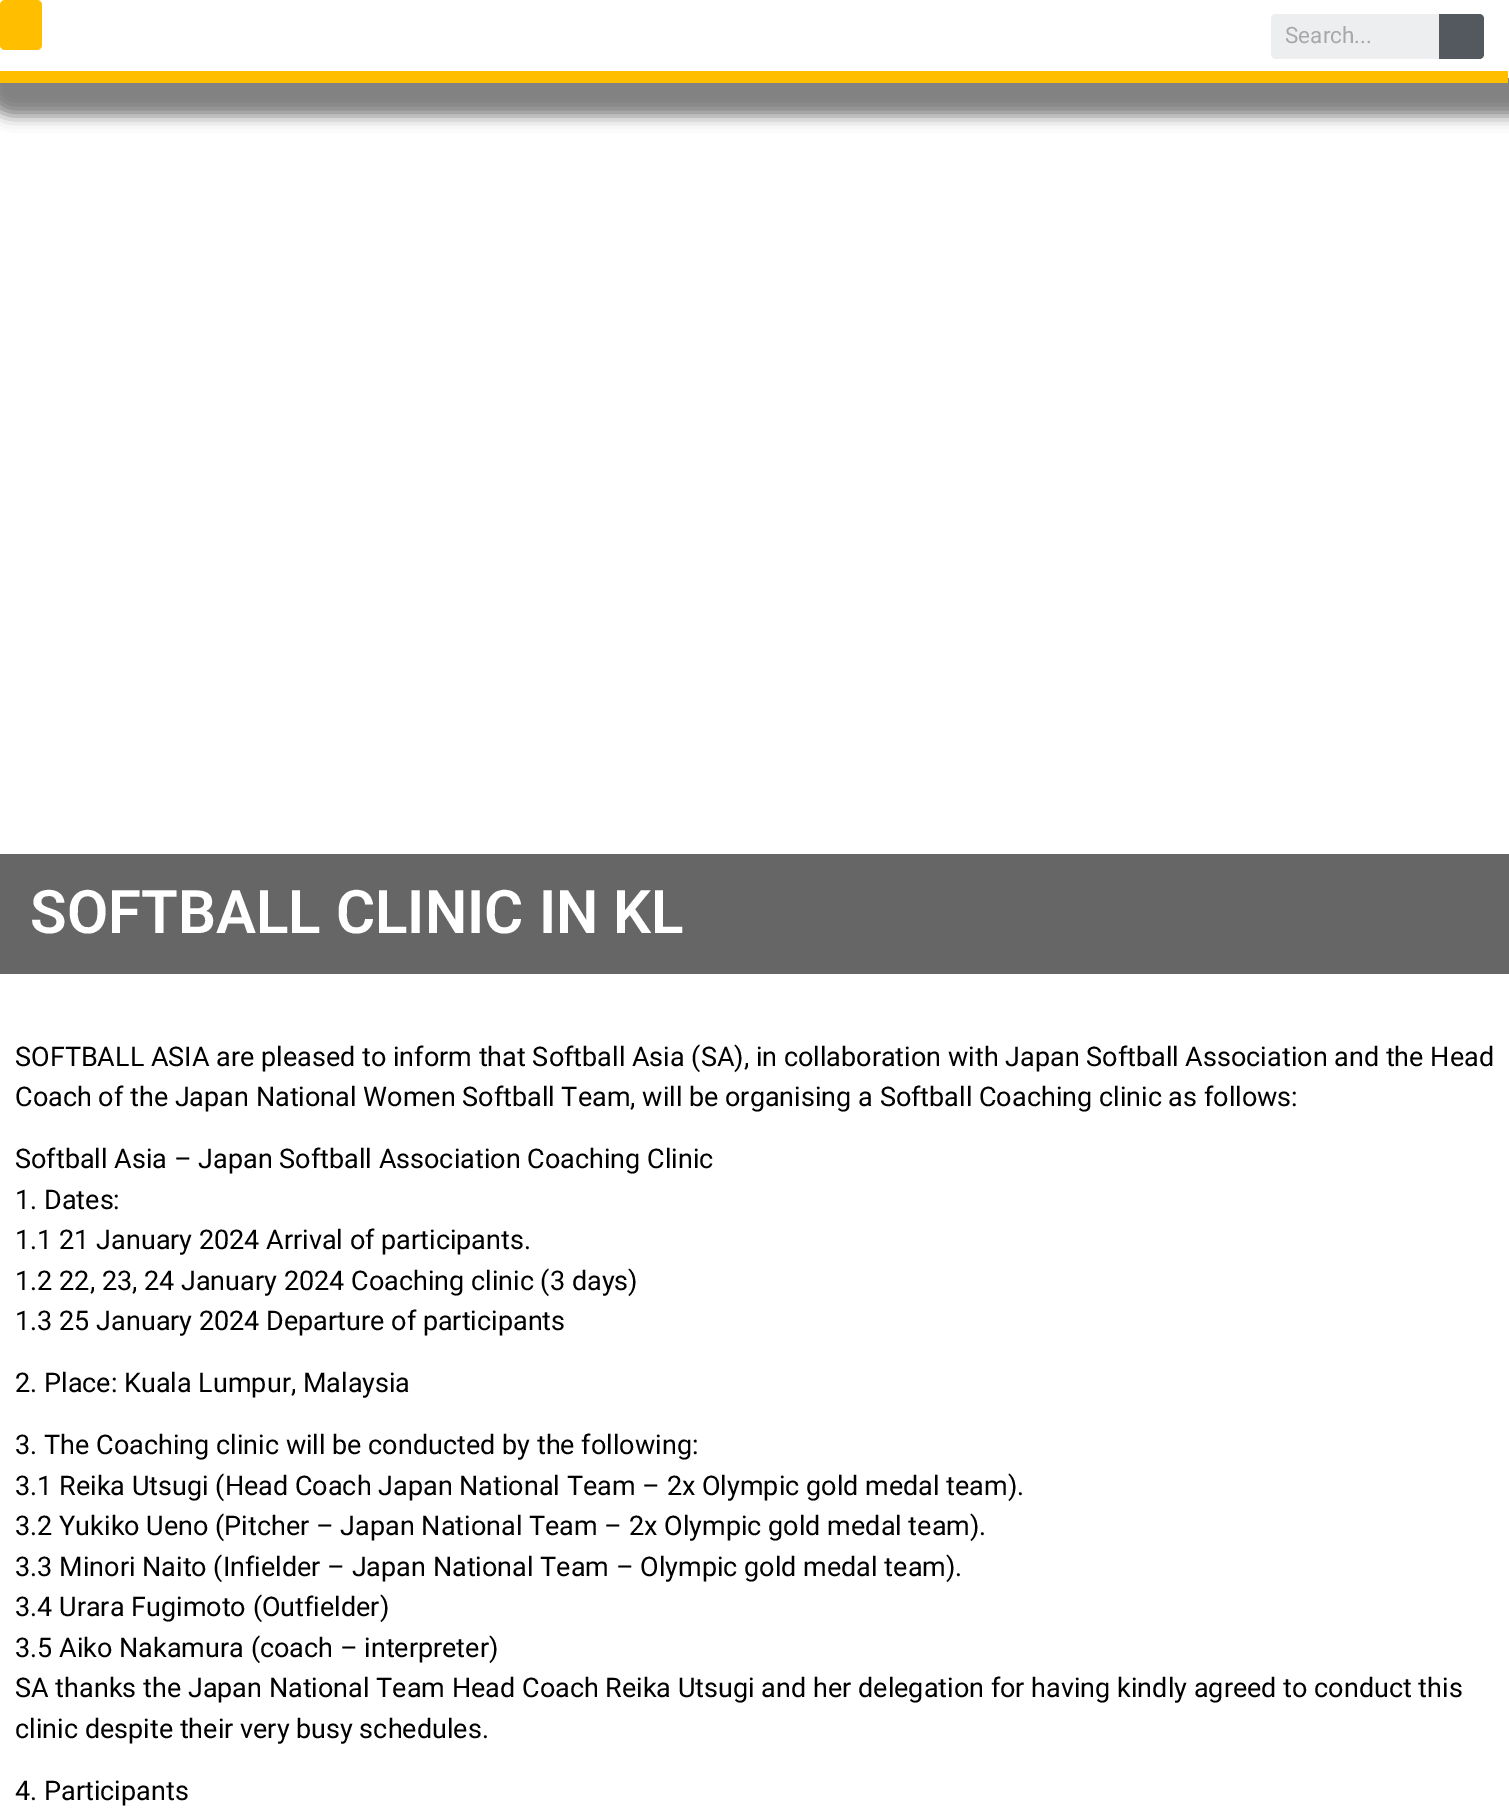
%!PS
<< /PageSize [1509 1810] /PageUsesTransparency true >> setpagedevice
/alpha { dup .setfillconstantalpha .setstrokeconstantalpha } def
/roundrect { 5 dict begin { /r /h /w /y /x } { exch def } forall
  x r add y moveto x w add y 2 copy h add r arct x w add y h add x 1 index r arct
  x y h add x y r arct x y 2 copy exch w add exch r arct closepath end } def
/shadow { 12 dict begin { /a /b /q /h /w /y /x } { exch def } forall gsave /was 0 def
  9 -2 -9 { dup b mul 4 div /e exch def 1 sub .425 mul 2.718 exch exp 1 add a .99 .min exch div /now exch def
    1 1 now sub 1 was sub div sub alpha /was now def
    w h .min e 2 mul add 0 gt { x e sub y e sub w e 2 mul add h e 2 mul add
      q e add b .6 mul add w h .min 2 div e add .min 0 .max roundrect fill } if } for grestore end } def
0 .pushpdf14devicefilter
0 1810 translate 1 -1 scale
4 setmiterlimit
1 setgray
0 0 1509 1810 rectfill
gsave
newpath 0 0 moveto 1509 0 lineto 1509 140 lineto 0 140 lineto closepath 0 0 moveto 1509 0 lineto 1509 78 lineto 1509 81 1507 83 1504 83 curveto 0 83 lineto closepath eoclip newpath
0 setgray
-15 -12 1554 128 27 7.5 0.5 shadow
grestore
1 0.745 0 setrgbcolor
0 71 1508 12 rectfill
0 0 42 50 5 roundrect fill
0.925 0.933 0.937 setrgbcolor
1271 14 213 45 5 roundrect fill
/Roboto-Regular [22.5 0 0 -22.5 0 0] selectfont
0.659 0.659 0.663 setrgbcolor
1285 43 moveto (Search...) show
0.329 0.349 0.373 setrgbcolor
newpath 1439 14 moveto 1479 14 lineto 1482 14 1484 16 1484 19 curveto 1484 54 lineto 1484 57 1482 59 1479 59 curveto 1439 59 lineto closepath fill
0.4 setgray
0 854 1509 120 rectfill
/Roboto-SemiBold [60 0 0 -60 0 0] selectfont
1 setgray
30 933 moveto (SOFTBALL CLINIC IN KL) show
/Roboto-Regular [27 0 0 -27 0 0] selectfont
0 setgray
15 1066 moveto (SOFTBALL ASIA are pleased to inform that Softball Asia \(SA\), in collaboration with Japan Softball Association and the Head) show
15 1106 moveto (Coach of the Japan National Women Softball Team, will be organising a Softball Coaching clinic as follows:) show
15 1168 moveto (Softball Asia – Japan Softball Association Coaching Clinic) show
15 1209 moveto (1. Dates:) show
15 1249 moveto (1.1 21 January 2024 Arrival of participants.) show
15 1290 moveto (1.2 22, 23, 24 January 2024 Coaching clinic \(3 days\)) show
15 1330 moveto (1.3 25 January 2024 Departure of participants) show
15 1392 moveto (2. Place: Kuala Lumpur, Malaysia) show
15 1454 moveto (3. The Coaching clinic will be conducted by the following:) show
15 1495 moveto (3.1 Reika Utsugi \(Head Coach Japan National Team – 2x Olympic gold medal team\).) show
15 1535 moveto (3.2 Yukiko Ueno \(Pitcher – Japan National Team – 2x Olympic gold medal team\).) show
15 1576 moveto (3.3 Minori Naito \(Infielder – Japan National Team – Olympic gold medal team\).) show
15 1616 moveto (3.4 Urara Fugimoto \(Outfielder\)) show
15 1657 moveto (3.5 Aiko Nakamura \(coach – interpreter\)) show
15 1697 moveto (SA thanks the Japan National Team Head Coach Reika Utsugi and her delegation for having kindly agreed to conduct this) show
15 1738 moveto (clinic despite their very busy schedules.) show
15 1800 moveto (4. Participants) show
.poppdf14devicefilter showpage
